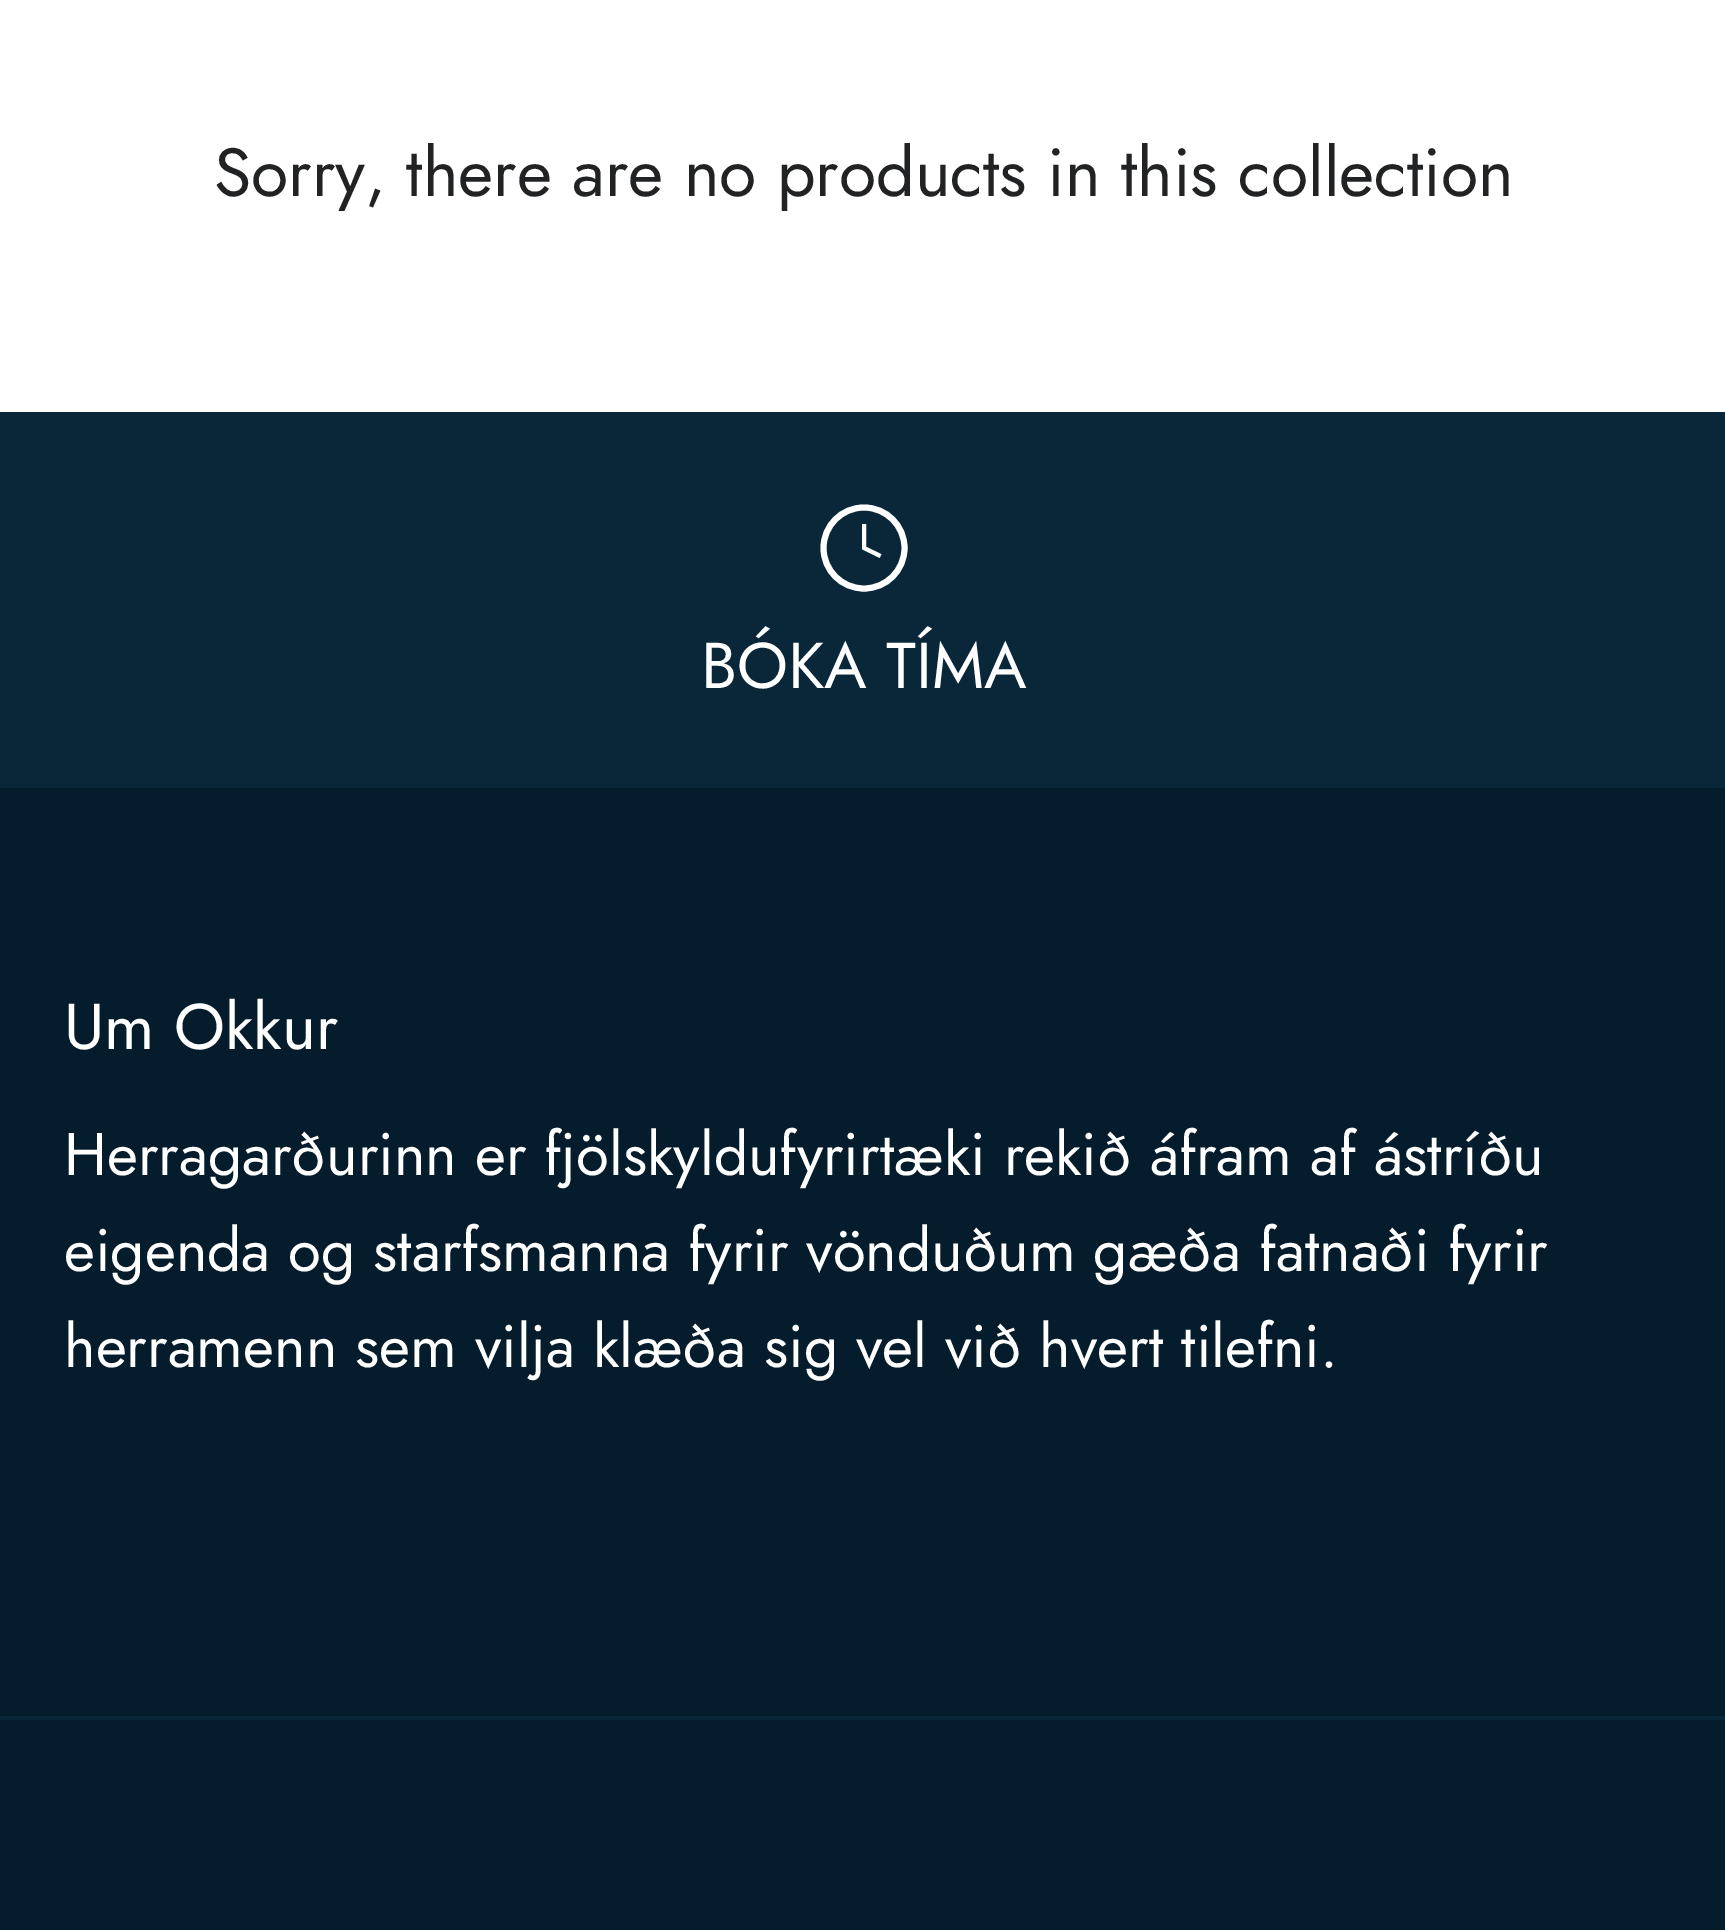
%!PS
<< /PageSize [1725 1930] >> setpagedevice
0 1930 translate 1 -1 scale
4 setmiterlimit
1 setgray
0 0 1725 1930 rectfill
/Jost-Regular [68 0 0 -68 0 0] selectfont
0.125 0.133 0.137 setrgbcolor
214 196 moveto (Sorry, there are no products in this collection) show
0.016 0.11 0.173 setrgbcolor
0 788 1725 1142 rectfill
0.039 0.153 0.227 setrgbcolor
0 412 1725 376 rectfill
1 setgray
6 setlinewidth
newpath 864 548 40.5 0 360 arc closepath stroke
4 setlinewidth
newpath 864 524 moveto 864 548 lineto 880.5 556 lineto stroke
/Jost-Regular [64.5 0 0 -64.5 0 0] selectfont
701 688 moveto (BÓKA TÍMA) show
64 1049 moveto (Um Okkur) show
/Jost-Regular [60 0 0 -60 0 0] selectfont
64 1175 moveto (Herragarðurinn er fjölskyldufyrirtæki rekið áfram af ástríðu) show
64 1271 moveto (eigenda og starfsmanna fyrir vönduðum gæða fatnaði fyrir) show
64 1367 moveto (herramenn sem vilja klæða sig vel við hvert tilefni.) show
0.039 0.153 0.227 setrgbcolor
0 1716 1725 4 rectfill
showpage
